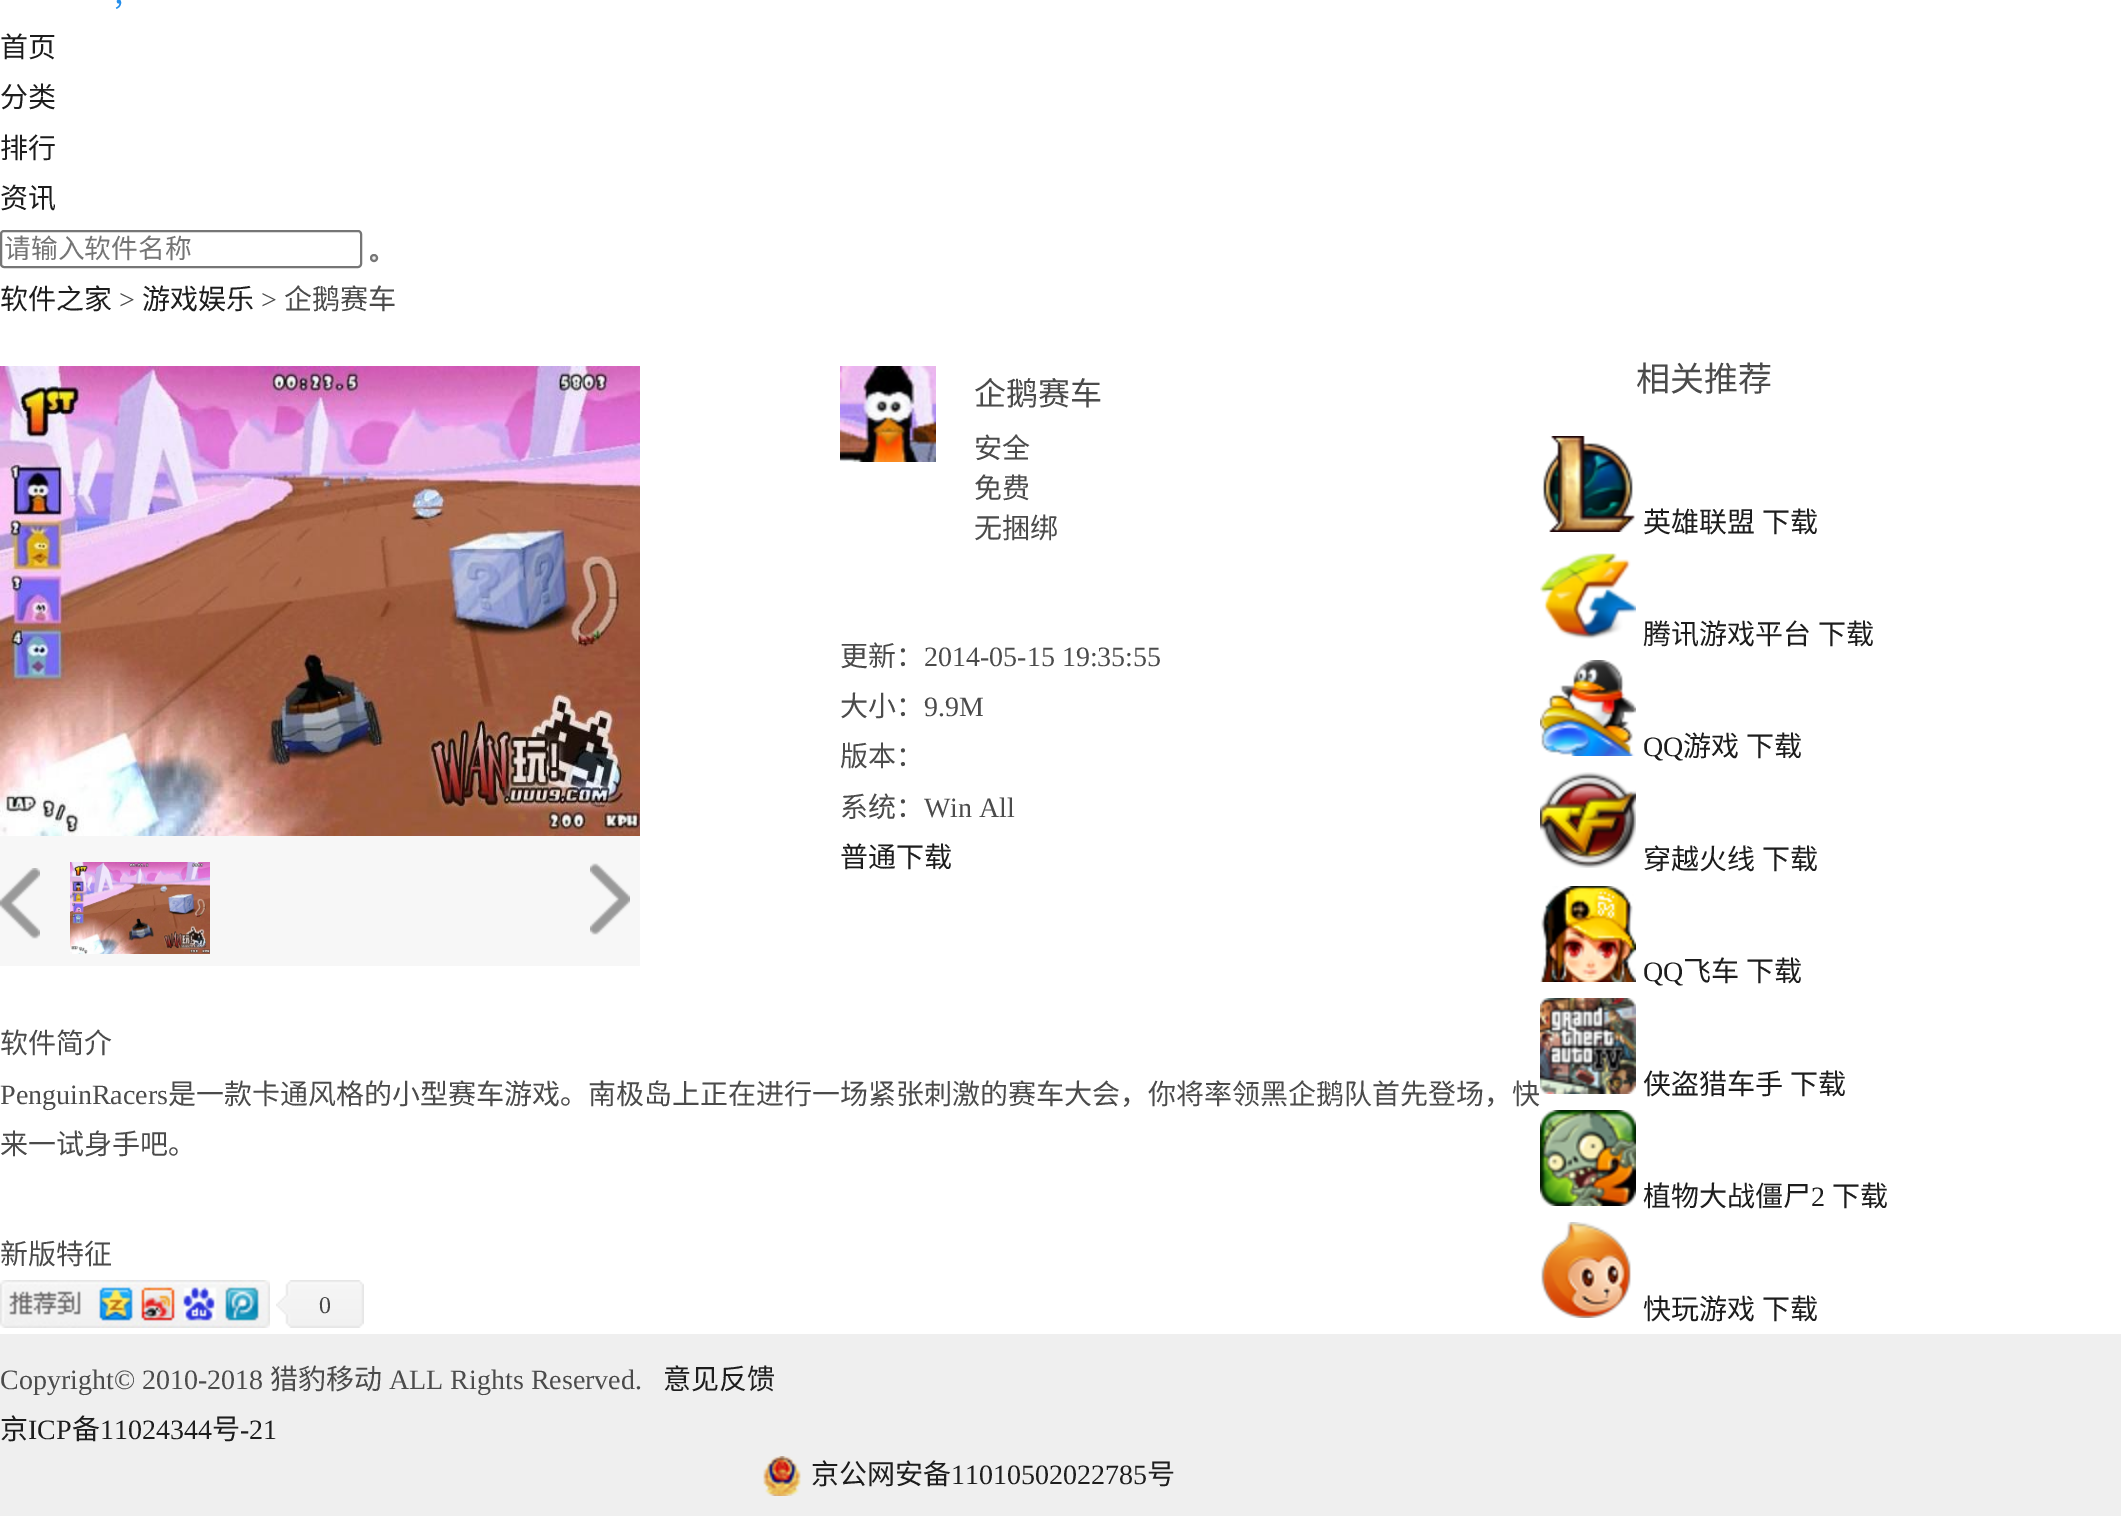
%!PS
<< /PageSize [2121 1516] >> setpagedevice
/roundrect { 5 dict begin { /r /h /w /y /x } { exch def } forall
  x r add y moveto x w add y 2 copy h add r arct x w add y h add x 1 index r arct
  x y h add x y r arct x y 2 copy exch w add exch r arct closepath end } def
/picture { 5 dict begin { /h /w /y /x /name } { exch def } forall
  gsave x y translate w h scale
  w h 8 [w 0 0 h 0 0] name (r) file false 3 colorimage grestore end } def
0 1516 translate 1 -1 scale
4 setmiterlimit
1 setgray
0 0 2121 1516 rectfill
/NotoSansCJKSC-Regular [28 0 0 -28 0 0] selectfont
0.141 0.557 0.922 setrgbcolor
112 6 moveto (，) show
0.114 setgray
0 57 moveto (首页) show
0 107 moveto (分类) show
0 158 moveto (排行) show
0 208 moveto (资讯) show
0.463 setgray
2 setlinewidth
1 231 360 36 3 roundrect stroke
/NotoSansCJKSC-Regular [26.75 0 0 -26.75 0 0] selectfont
0.459 setgray
4 258 moveto (请输入软件名称) show
0.937 setgray
newpath 374 258 3 0 360 arc closepath gsave fill grestore
0.463 setgray
stroke
/NotoSansCJKSC-Regular [28 0 0 -28 0 0] selectfont
0.114 setgray
0 309 moveto (软件之家) show
/LiberationSerif-Regular [28 0 0 -28 0 0] selectfont
0.294 setgray
119 309 moveto (>) show
/NotoSansCJKSC-Regular [28 0 0 -28 0 0] selectfont
0.114 setgray
142 309 moveto (游戏娱乐) show
/LiberationSerif-Regular [28 0 0 -28 0 0] selectfont
0.294 setgray
261 309 moveto (>) show
/NotoSansCJKSC-Regular [28 0 0 -28 0 0] selectfont
284 309 moveto (企鹅赛车) show
0.969 setgray
0 836 640 130 rectfill
(img1.rgb) 0 366 640 470 picture
(img2.rgb) 0 868 40 71 picture
(img3.rgb) 70 862 140 92 picture
(img4.rgb) 590 863 40 72 picture
(img5.rgb) 840 366 96 96 picture
/NotoSansCJKSC-Regular [32 0 0 -32 0 0] selectfont
0.294 setgray
974 405 moveto (企鹅赛车) show
/NotoSansCJKSC-Regular [28 0 0 -28 0 0] selectfont
974 458 moveto (安全) show
974 498 moveto (免费) show
974 538 moveto (无捆绑) show
840 666 moveto (更新：) show
/LiberationSerif-Regular [28 0 0 -28 0 0] selectfont
924 666 moveto (2014-05-15 19:35:55) show
/NotoSansCJKSC-Regular [28 0 0 -28 0 0] selectfont
840 716 moveto (大小：) show
/LiberationSerif-Regular [28 0 0 -28 0 0] selectfont
924 716 moveto (9.9M) show
/NotoSansCJKSC-Regular [28 0 0 -28 0 0] selectfont
840 766 moveto (版本：) show
840 817 moveto (系统：) show
/LiberationSerif-Regular [28 0 0 -28 0 0] selectfont
924 817 moveto (Win All) show
/NotoSansCJKSC-Regular [28 0 0 -28 0 0] selectfont
0.114 setgray
840 867 moveto (普通下载) show
0.294 setgray
0 1053 moveto (软件简介) show
/LiberationSerif-Regular [28 0 0 -28 0 0] selectfont
0 1104 moveto (PenguinRacers) show
/NotoSansCJKSC-Regular [28 0 0 -28 0 0] selectfont
168 1104 moveto (是一款卡通风格的小型赛车游戏。南极岛上正在进行一场紧张刺激的赛车大会，你将率领黑企鹅队首先登场，快) show
0 1154 moveto (来一试身手吧。) show
0 1264 moveto (新版特征) show
(img6.rgb) 0 1280 270 48 picture
(img7.rgb) 276 1280 88 48 picture
/LiberationSerif-Regular [24 0 0 -24 0 0] selectfont
0.271 setgray
319 1313 moveto (0) show
/NotoSansCJKSC-Regular [34 0 0 -34 0 0] selectfont
0.294 setgray
1636 391 moveto (相关推荐) show
(img8.rgb) 1542 436 93 96 picture
/NotoSansCJKSC-Regular [28 0 0 -28 0 0] selectfont
0.114 setgray
1643 532 moveto (英雄联盟) show
1762 532 moveto (下载) show
(img9.rgb) 1540 553 96 86 picture
1643 644 moveto (腾讯游戏平台) show
1818 644 moveto (下载) show
(img10.rgb) 1540 660 96 96 picture
/LiberationSerif-Regular [28 0 0 -28 0 0] selectfont
1643 756 moveto (QQ) show
/NotoSansCJKSC-Regular [28 0 0 -28 0 0] selectfont
1683 756 moveto (游戏) show
1746 756 moveto (下载) show
(img11.rgb) 1540 772 96 96 picture
1643 869 moveto (穿越火线) show
1762 869 moveto (下载) show
(img12.rgb) 1540 886 96 96 picture
/LiberationSerif-Regular [28 0 0 -28 0 0] selectfont
1643 981 moveto (QQ) show
/NotoSansCJKSC-Regular [28 0 0 -28 0 0] selectfont
1683 981 moveto (飞车) show
1746 981 moveto (下载) show
(img13.rgb) 1540 998 96 96 picture
1643 1094 moveto (侠盗猎车手) show
1790 1094 moveto (下载) show
(img14.rgb) 1540 1110 96 96 picture
1643 1206 moveto (植物大战僵尸) show
/LiberationSerif-Regular [28 0 0 -28 0 0] selectfont
1811 1206 moveto (2) show
/NotoSansCJKSC-Regular [28 0 0 -28 0 0] selectfont
1832 1206 moveto (下载) show
(img15.rgb) 1541 1222 90 96 picture
1643 1319 moveto (快玩游戏) show
1762 1319 moveto (下载) show
0.937 setgray
0 1334 2121 182 rectfill
/LiberationSerif-Regular [28 0 0 -28 0 0] selectfont
0.294 setgray
0 1389 moveto (Copyright© 2010-2018) show
/NotoSansCJKSC-Regular [28 0 0 -28 0 0] selectfont
270 1389 moveto (猎豹移动) show
/LiberationSerif-Regular [28 0 0 -28 0 0] selectfont
389 1389 moveto (ALL Rights Reserved.) show
/NotoSansCJKSC-Regular [28 0 0 -28 0 0] selectfont
0.114 setgray
663 1389 moveto (意见反馈) show
0 1439 moveto (京) show
/LiberationSerif-Regular [28 0 0 -28 0 0] selectfont
28 1439 moveto (ICP) show
/NotoSansCJKSC-Regular [28 0 0 -28 0 0] selectfont
72 1439 moveto (备) show
/LiberationSerif-Regular [28 0 0 -28 0 0] selectfont
100 1439 moveto (11024344) show
/NotoSansCJKSC-Regular [28 0 0 -28 0 0] selectfont
212 1439 moveto (号) show
/LiberationSerif-Regular [28 0 0 -28 0 0] selectfont
240 1439 moveto (-21) show
(img16.rgb) 763 1456 38 40 picture
/NotoSansCJKSC-Regular [28 0 0 -28 0 0] selectfont
811 1484 moveto (京公网安备) show
/LiberationSerif-Regular [28 0 0 -28 0 0] selectfont
951 1484 moveto (11010502022785) show
/NotoSansCJKSC-Regular [28 0 0 -28 0 0] selectfont
1147 1484 moveto (号) show
showpage
